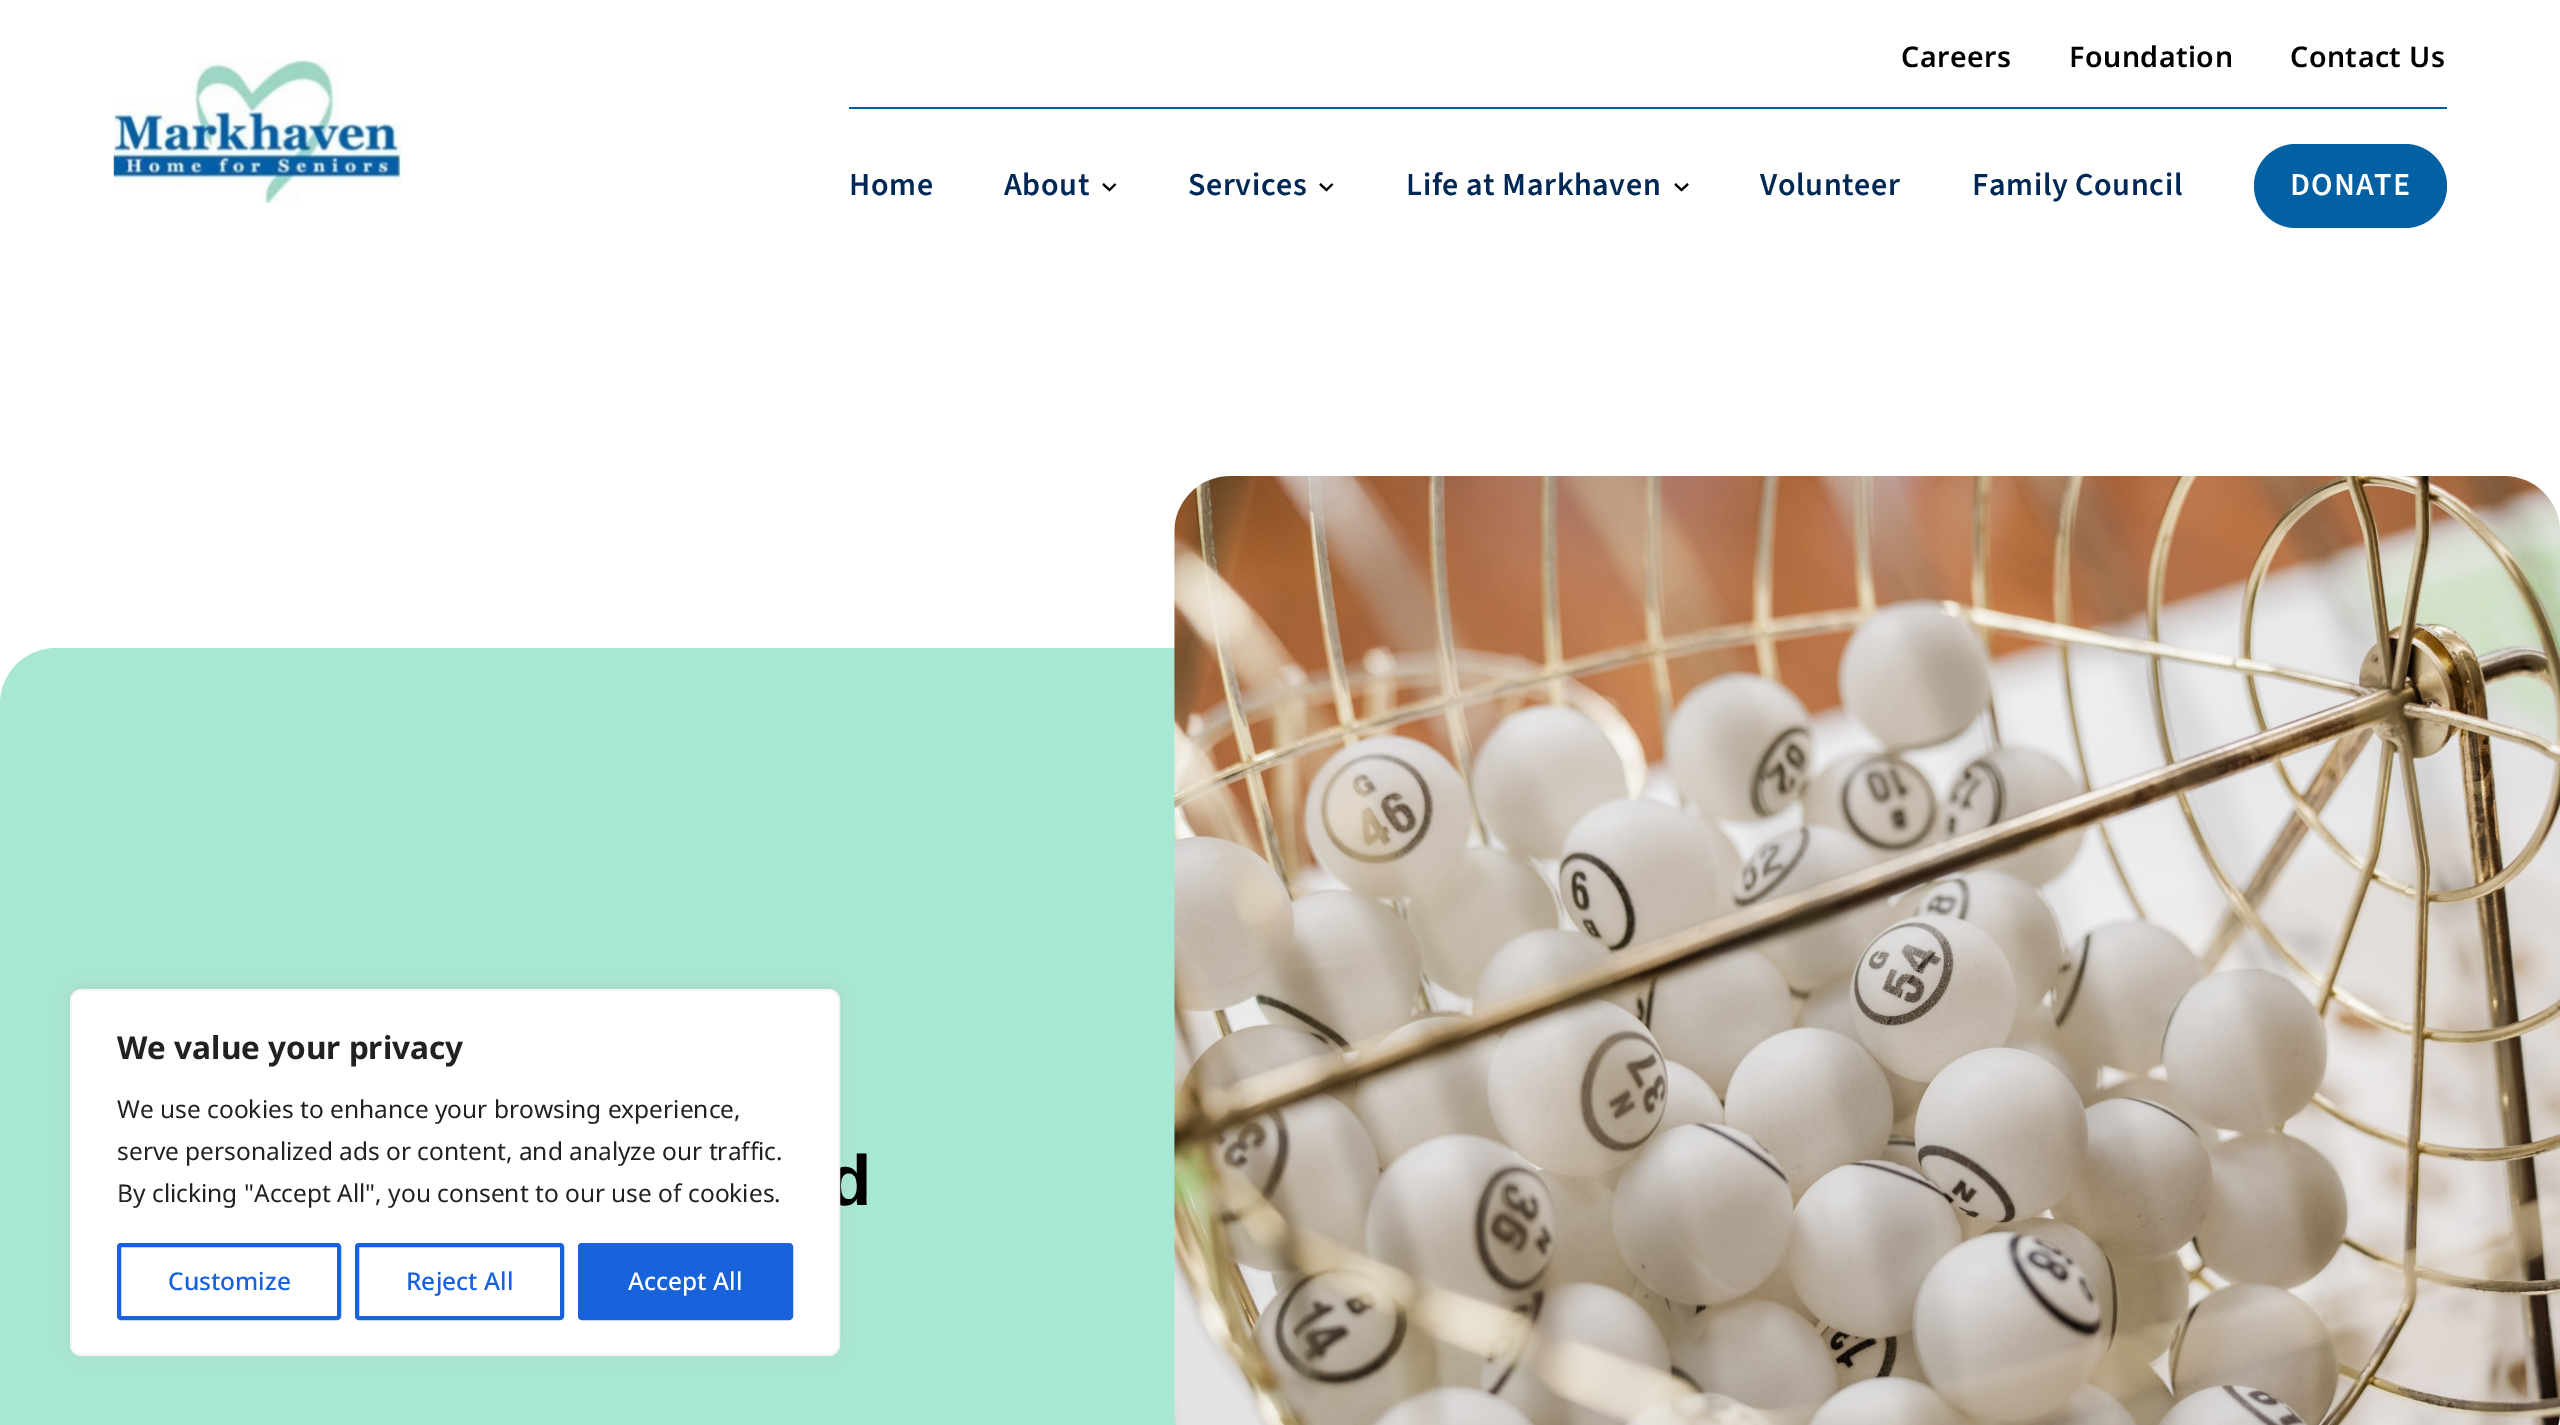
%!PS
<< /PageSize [2560 1425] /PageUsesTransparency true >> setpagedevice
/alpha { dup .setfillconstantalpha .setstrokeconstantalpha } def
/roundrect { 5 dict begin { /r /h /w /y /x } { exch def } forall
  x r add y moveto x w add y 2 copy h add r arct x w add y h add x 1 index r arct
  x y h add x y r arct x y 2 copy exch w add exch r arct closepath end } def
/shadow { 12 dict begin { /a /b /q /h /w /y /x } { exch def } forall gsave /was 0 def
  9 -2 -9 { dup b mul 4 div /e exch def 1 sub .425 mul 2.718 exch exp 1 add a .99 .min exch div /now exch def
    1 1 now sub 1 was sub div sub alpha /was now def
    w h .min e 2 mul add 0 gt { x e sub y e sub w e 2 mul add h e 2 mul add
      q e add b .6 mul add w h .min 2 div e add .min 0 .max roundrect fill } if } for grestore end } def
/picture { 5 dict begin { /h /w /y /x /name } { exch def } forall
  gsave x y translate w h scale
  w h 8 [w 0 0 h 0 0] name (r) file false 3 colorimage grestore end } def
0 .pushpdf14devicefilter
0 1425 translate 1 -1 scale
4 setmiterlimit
1 setgray
0 0 2560 1425 rectfill
0.659 0.906 0.831 setrgbcolor
0 648 1386 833 56 roundrect fill
0.675 0.671 0.671 setrgbcolor
70 987 770 368 11 9 0.3 shadow
/LiberationSans-Bold [71 0 0 -71 0 0] selectfont
0 setgray
828 1205 moveto (d) show
1 setgray
71 990 768 365 10 roundrect gsave fill grestore
0.957 setgray
2 setlinewidth
stroke
/NotoSans-Bold [31.5 0 0 -31.5 0 0] selectfont
0.129 setgray
117 1059 moveto (We value your privacy) show
/NotoSans-Regular [24.5 0 0 -24.5 0 0] selectfont
117 1118 moveto (We use cookies to enhance your browsing experience,) show
117 1160 moveto (serve personalized ads or content, and analyze our traffic.) show
117 1202 moveto (By clicking "Accept All", you consent to our use of cookies.) show
0.094 0.388 0.863 setrgbcolor
4 setlinewidth
119 1245 220 73 2 roundrect stroke
/NotoSans-Medium [24.5 0 0 -24.5 0 0] selectfont
168 1290 moveto (Customize) show
357 1245 205 73 2 roundrect stroke
406 1290 moveto (Reject All) show
580 1245 211 73 2 roundrect gsave fill grestore
stroke
1 setgray
628 1290 moveto (Accept All) show
(img1.rgb) 113 60 289 143 picture
/NotoSans-SemiBold [28.5 0 0 -28.5 0 0] selectfont
0 setgray
1901 67 moveto 0.5 0 (Careers) ashow
2069 67 moveto 0.5 0 (Foundation) ashow
2290 67 moveto 0.5 0 (Contact Us) ashow
0.012 0.38 0.639 setrgbcolor
849 107 1598 2 rectfill
/SourceSans3-SemiBold [32 0 0 -32 0 0] selectfont
0 0.157 0.333 setrgbcolor
849 195 moveto 0.6 0 (Home) ashow
1004 195 moveto 0.6 0 (About) ashow
0 setgray
2.1 setlinewidth
newpath 1103 184 moveto 1109.5 190 lineto 1115.5 184 lineto stroke
0 0.157 0.333 setrgbcolor
1188 195 moveto 0.6 0 (Services) ashow
0 setgray
newpath 1320 184 moveto 1326.5 190 lineto 1332.5 184 lineto stroke
0 0.157 0.333 setrgbcolor
1406 195 moveto 0.6 0 (Life at Markhaven) ashow
0 setgray
newpath 1675 184 moveto 1681.5 190 lineto 1688 184 lineto stroke
0 0.157 0.333 setrgbcolor
1760 195 moveto 0.6 0 (Volunteer) ashow
1972 195 moveto 0.6 0 (Family Council) ashow
0.012 0.38 0.639 setrgbcolor
2254 144 193 84 42 roundrect fill
1 setgray
2290 195 moveto 1 0 (DONATE) ashow
(img2.rgb) 1174 476 1386 949 picture
.poppdf14devicefilter showpage
